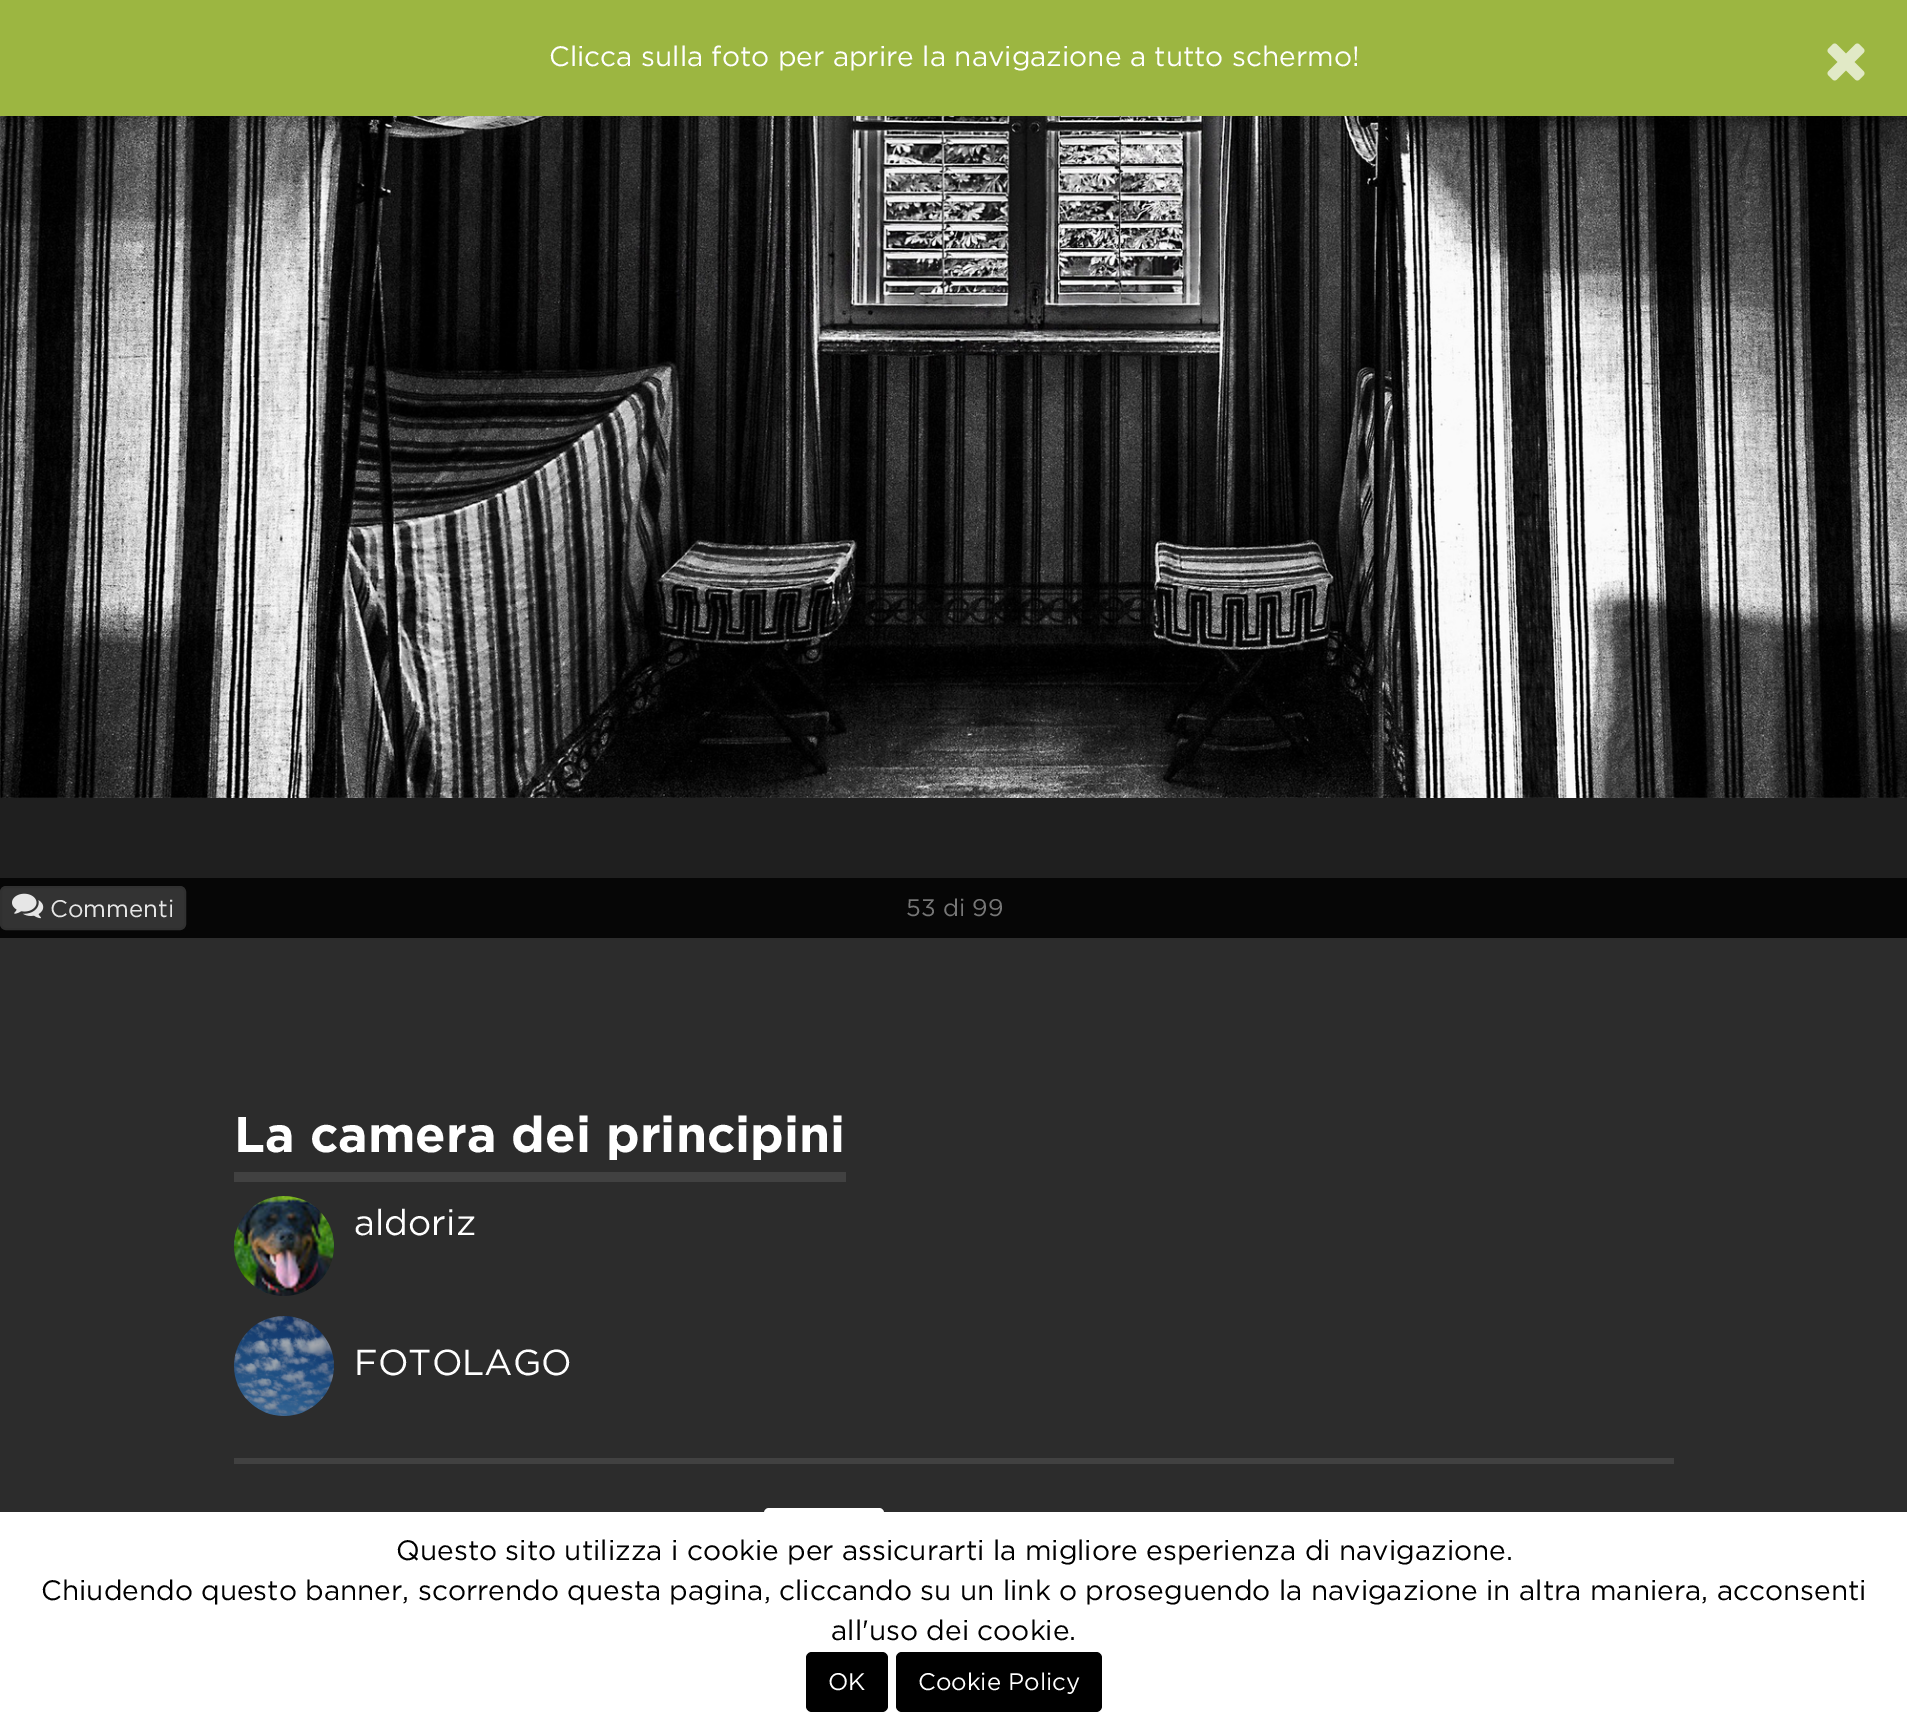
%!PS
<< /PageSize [1907 1731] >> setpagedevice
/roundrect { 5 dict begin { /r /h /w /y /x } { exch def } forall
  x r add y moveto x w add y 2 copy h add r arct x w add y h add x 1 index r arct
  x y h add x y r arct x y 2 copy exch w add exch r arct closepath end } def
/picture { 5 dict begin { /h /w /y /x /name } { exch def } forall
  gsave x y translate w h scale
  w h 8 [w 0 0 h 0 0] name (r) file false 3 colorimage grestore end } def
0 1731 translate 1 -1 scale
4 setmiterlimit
0.173 setgray
0 0 1907 1731 rectfill
0.612 0.714 0.255 setrgbcolor
0 0 1907 116 rectfill
/Gotham-Regular [28 0 0 -28 0 0] selectfont
1 setgray
549 66 moveto (Clicca sulla foto per aprire la navigazione a tutto schermo!) show
(img1.rgb) 1827 43 38 38 picture
0.122 setgray
0 798 1907 80 rectfill
(img2.rgb) 0 116 1907 682 picture
0.024 setgray
0 878 1907 60 rectfill
0.2 setgray
1 887 184 42 5 roundrect gsave fill grestore
0.188 setgray
2 setlinewidth
stroke
(img3.rgb) 12 893 32 26 picture
/Gotham-Regular [24 0 0 -24 0 0] selectfont
0.902 setgray
50 917 moveto (Commenti) show
0.467 setgray
906 916 moveto (53 di 99) show
/Gotham-Bold [50 0 0 -50 0 0] selectfont
1 setgray
234 1152 moveto (La camera dei principini) show
0.255 setgray
234 1172 612 10 rectfill
(img4.rgb) 234 1196 100 100 picture
/Gotham-Regular [36 0 0 -36 0 0] selectfont
1 setgray
354 1235 moveto (aldoriz) show
(img5.rgb) 234 1316 100 100 picture
354 1375 moveto (FOTOLAGO) show
0.255 setgray
234 1458 1440 6 rectfill
1 setgray
764 1508 120 34 5 roundrect fill
0 1512 1907 219 rectfill
/Gotham-Regular [28 0 0 -28 0 0] selectfont
0 setgray
396 1560 moveto (Questo sito utilizza i cookie per assicurarti la migliore esperienza di navigazione.) show
41 1600 moveto (Chiudendo questo banner, scorrendo questa pagina, cliccando su un link o proseguendo la navigazione in altra maniera, acconsenti) show
831 1640 moveto (all'uso dei cookie.) show
806 1652 82 60 6 roundrect fill
/Gotham-Regular [24 0 0 -24 0 0] selectfont
1 setgray
828 1690 moveto (OK) show
0 setgray
896 1652 206 60 6 roundrect fill
1 setgray
918 1690 moveto (Cookie Policy) show
showpage
